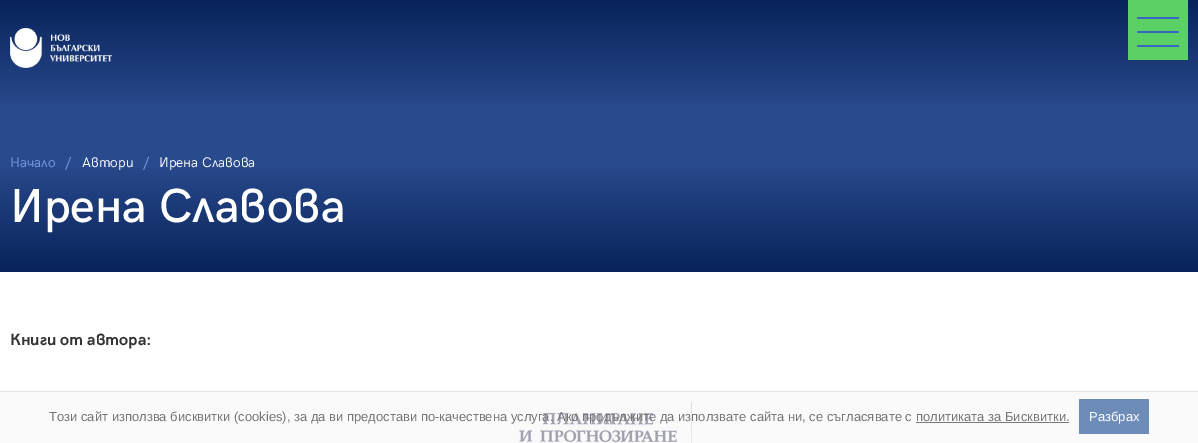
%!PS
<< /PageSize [1198 443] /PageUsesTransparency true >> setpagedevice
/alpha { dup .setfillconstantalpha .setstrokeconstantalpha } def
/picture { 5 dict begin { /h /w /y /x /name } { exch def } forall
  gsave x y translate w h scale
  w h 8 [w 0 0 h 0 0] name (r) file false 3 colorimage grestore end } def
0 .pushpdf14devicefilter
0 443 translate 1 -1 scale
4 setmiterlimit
0.161 0.29 0.549 setrgbcolor
0 0 1198 443 rectfill
gsave newpath 0 0 moveto 1198 0 lineto 1198 105 lineto 0 105 lineto closepath clip newpath
<< /ShadingType 2 /ColorSpace /DeviceRGB /Coords [599 0 599 110] /Extend [true true] /Function << /FunctionType 2 /Domain [0 1] /C0 [0.031 0.137 0.353] /C1 [0.161 0.29 0.549] /N 1 >> >> shfill grestore
(img1.rgb) 10 28 102 40 picture
0.357 0.816 0.388 setrgbcolor
1128 0 60 60 rectfill
0.227 0.404 0.761 setrgbcolor
1137 17 42 2 rectfill
1137 31 42 2 rectfill
1137 45 42 2 rectfill
gsave newpath 0 167 moveto 1198 167 lineto 1198 272 lineto 0 272 lineto closepath clip newpath
<< /ShadingType 2 /ColorSpace /DeviceRGB /Coords [599 272 599 162] /Extend [true true] /Function << /FunctionType 2 /Domain [0 1] /C0 [0.031 0.137 0.353] /C1 [0.161 0.29 0.549] /N 1 >> >> shfill grestore
/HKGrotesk-Regular [14 0 0 -14 0 0] selectfont
0.471 0.612 0.894 setrgbcolor
10 167 moveto (Начало) show
65 167 moveto (/) show
1 setgray
82 167 moveto (Автори) show
0.471 0.612 0.894 setrgbcolor
143 167 moveto (/) show
1 setgray
159 167 moveto (Ирена Славова) show
/HKGrotesk-Medium [48 0 0 -48 0 0] selectfont
10 222 moveto (Ирена Славова) show
0 272 1198 171 rectfill
/HKGrotesk-Bold [16.4 0 0 -16.4 0 0] selectfont
0.2 setgray
10 345 moveto (Книги от автора:) show
(img2.rgb) 506 384 186 59 picture
0.65 alpha
0.969 setgray
0 392 1198 51 rectfill
1 alpha
0.898 setgray
0 391 1198 1 rectfill
/LiberationSans-Regular [13 0 0 -13 0 0] selectfont
0.463 setgray
49 421 moveto (Този сайт използва бисквитки \(cookies\), за да ви предостави по-качествена услуга. Ако продължите да използвате сайта ни, се съгласявате с) show
916 421 moveto (политиката за Бисквитки.) show
0.475 setgray
916 422 153 1 rectfill
0.427 0.553 0.722 setrgbcolor
1079 399 70 35 rectfill
1 setgray
1089 421 moveto (Разбрах) show
.poppdf14devicefilter showpage
